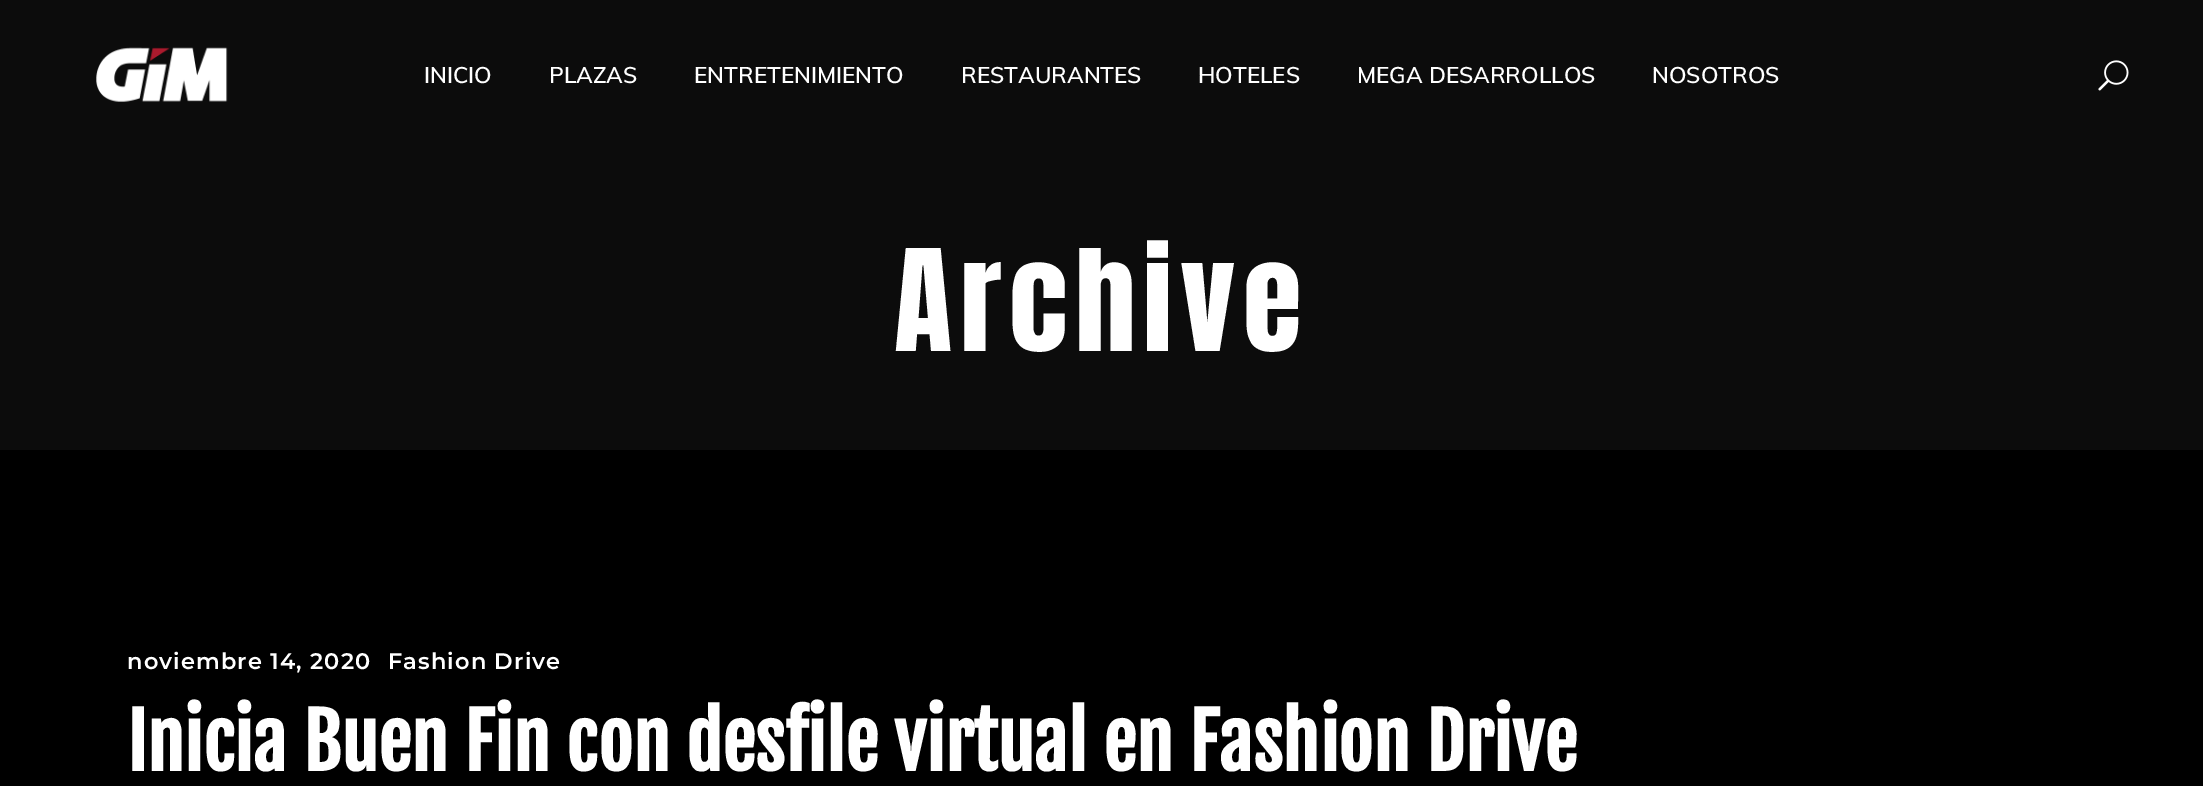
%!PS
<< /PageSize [2203 786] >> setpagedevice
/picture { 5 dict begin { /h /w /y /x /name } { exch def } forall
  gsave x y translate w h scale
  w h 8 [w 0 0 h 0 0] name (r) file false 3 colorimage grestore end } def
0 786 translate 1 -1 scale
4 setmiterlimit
0 setgray
0 0 2203 786 rectfill
0.047 setgray
0 0 2203 450 rectfill
(img1.rgb) 96 47 132 55 picture
/Muli-SemiBold [22.5 0 0 -22.5 0 0] selectfont
1 setgray
424 83 moveto (INICIO) show
549 83 moveto (PLAZAS) show
694 83 moveto (ENTRETENIMIENTO) show
961 83 moveto (RESTAURANTES) show
1198 83 moveto (HOTELES) show
1357 83 moveto (MEGA DESARROLLOS) show
1652 83 moveto (NOSOTROS) show
(img2.rgb) 2098 60 31 31 picture
/Anton-Regular [120 0 0 -120 0 0] selectfont
894 351 moveto 7.5 0 (Archive) ashow
/Montserrat-SemiBold [22.5 0 0 -22.5 0 0] selectfont
127 669 moveto 1.1 0 (noviembre 14, 2020) ashow
388 669 moveto 1.1 0 (Fashion Drive) ashow
/FjallaOne-Bold [75 0 0 -75 0 0] selectfont
127 771 moveto (Inicia Buen Fin con desfile virtual en Fashion Drive) show
showpage
